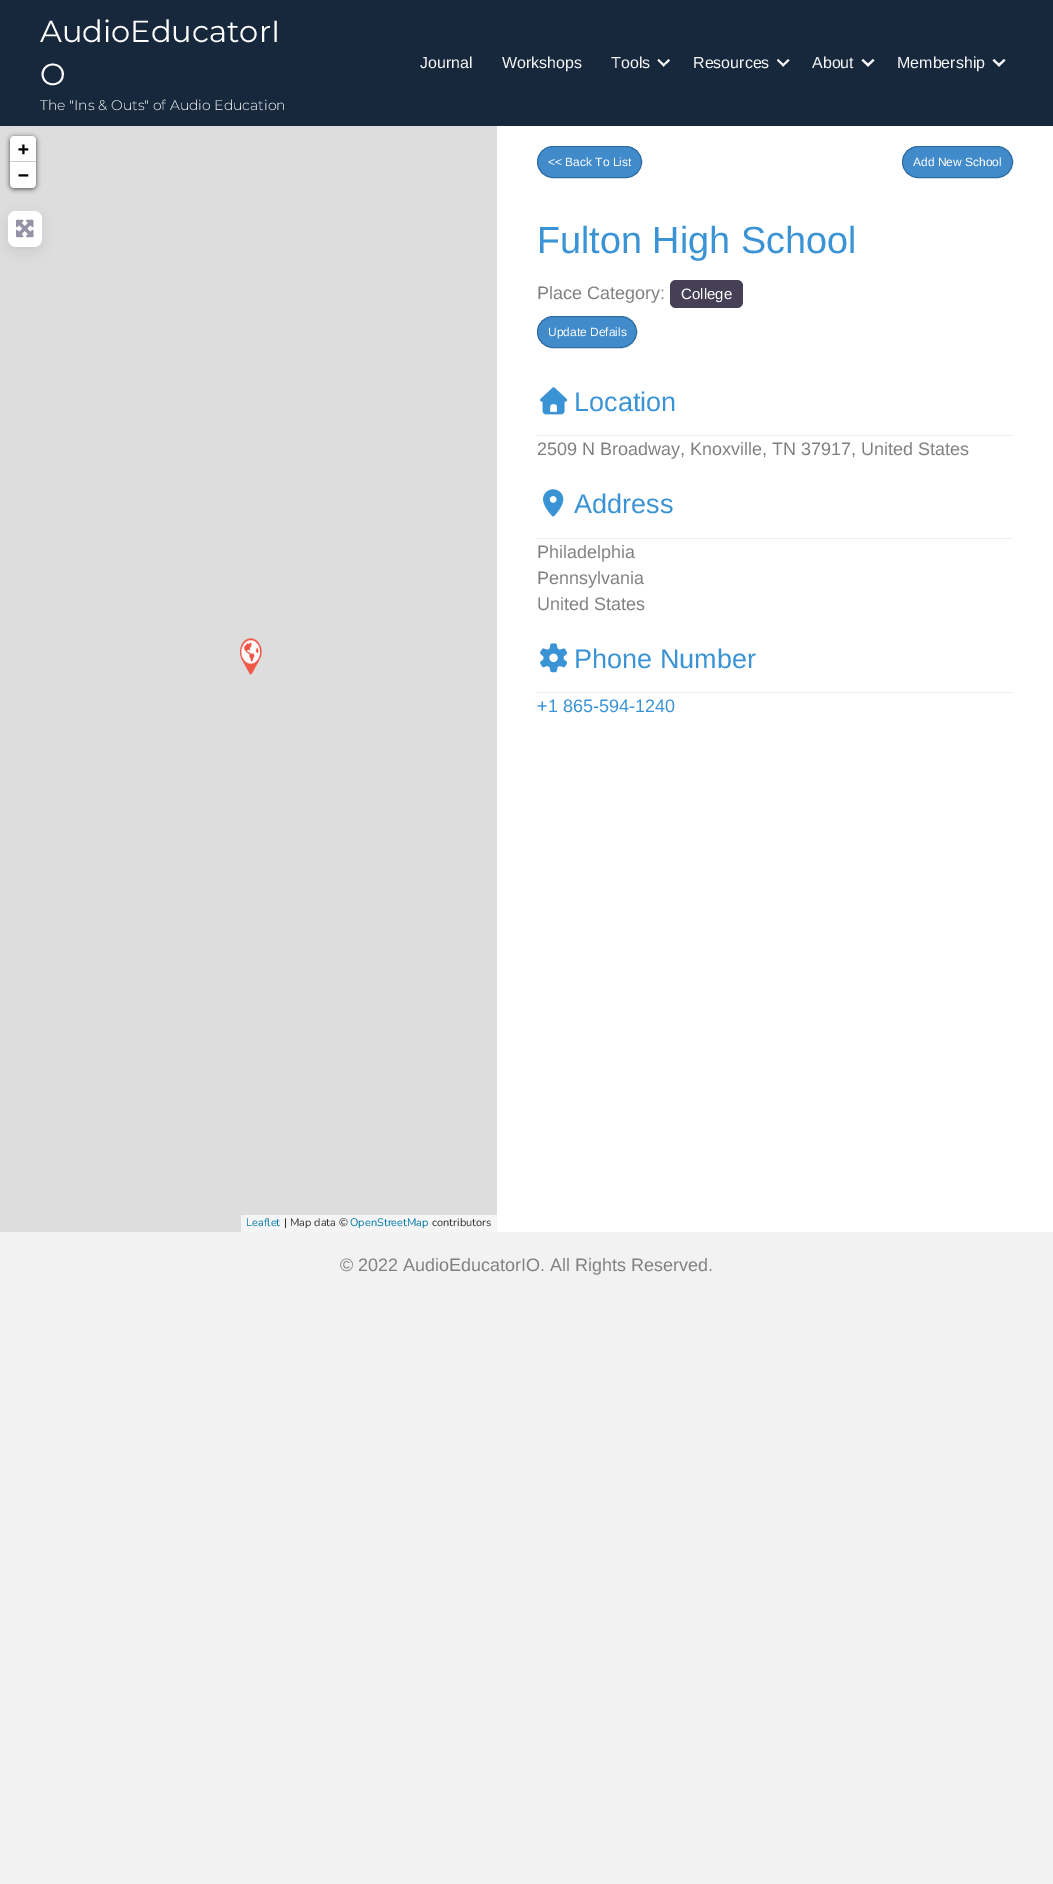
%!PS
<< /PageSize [1053 1884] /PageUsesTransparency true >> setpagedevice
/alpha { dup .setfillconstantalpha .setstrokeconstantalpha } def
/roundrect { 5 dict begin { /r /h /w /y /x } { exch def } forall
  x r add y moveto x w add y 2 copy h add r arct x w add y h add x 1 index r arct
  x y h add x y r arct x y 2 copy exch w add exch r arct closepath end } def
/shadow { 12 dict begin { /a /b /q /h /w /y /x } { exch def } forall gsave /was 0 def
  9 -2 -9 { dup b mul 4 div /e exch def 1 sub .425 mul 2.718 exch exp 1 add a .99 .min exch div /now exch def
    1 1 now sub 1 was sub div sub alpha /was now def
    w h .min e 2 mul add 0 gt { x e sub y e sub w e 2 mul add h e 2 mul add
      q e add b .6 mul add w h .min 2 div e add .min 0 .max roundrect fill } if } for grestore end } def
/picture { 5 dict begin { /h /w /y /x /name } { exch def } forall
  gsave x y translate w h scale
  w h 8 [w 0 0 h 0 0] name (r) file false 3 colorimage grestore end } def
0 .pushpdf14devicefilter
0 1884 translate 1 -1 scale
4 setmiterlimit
0.949 setgray
0 0 1053 1884 rectfill
0.09 0.157 0.239 setrgbcolor
0 0 1053 126 rectfill
/Montserrat-Regular [30.5 0 0 -30.5 0 0] selectfont
1 setgray
40 42 moveto (AudioEducatorI) show
40 85 moveto (O) show
/Montserrat-Light [14 0 0 -14 0 0] selectfont
40 110 moveto (The "Ins & Outs" of Audio Education) show
/LiberationSans-Regular [16 0 0 -16 0 0] selectfont
0.961 setgray
420 68 moveto (Journal) show
502 68 moveto (Workshops) show
611 68 moveto (Tools) show
newpath 668.5 59 moveto 670 60.5 lineto 663.5 66.5 lineto 662.5 65 lineto closepath fill
newpath 658.5 59 moveto 665 65 lineto 663.5 66.5 lineto 657.5 60.5 lineto closepath fill
693 68 moveto (Resources) show
newpath 788 59 moveto 789.5 60.5 lineto 783 66.5 lineto 782 65 lineto closepath fill
newpath 778 59 moveto 784.5 65 lineto 783 66.5 lineto 777 60.5 lineto closepath fill
812 68 moveto (About) show
newpath 873 59 moveto 874.5 60.5 lineto 868 66.5 lineto 866.5 65 lineto closepath fill
newpath 863 59 moveto 869.5 65 lineto 868 66.5 lineto 861.5 60.5 lineto closepath fill
897 68 moveto (Membership) show
newpath 1004 59 moveto 1005.5 60.5 lineto 999 66.5 lineto 997.5 65 lineto closepath fill
newpath 994 59 moveto 1000.5 65 lineto 999 66.5 lineto 992.5 60.5 lineto closepath fill
1 setgray
497 126 556 1106 rectfill
0.867 setgray
0 126 497 1106 rectfill
0 setgray
10 137 26 52 4 2.5 0.65 shadow
1 setgray
newpath 14 136 moveto 32 136 lineto 34 136 36 138 36 140 curveto 36 162 lineto 10 162 lineto 10 140 lineto 10 138 12 136 14 136 curveto closepath fill
0.8 setgray
10 161 26 1 rectfill
/DejaVuSansMono-Bold [18 0 0 -18 0 0] selectfont
0 setgray
18 155 moveto (+) show
1 setgray
newpath 10 162 moveto 36 162 lineto 36 184 lineto 36 186 34 188 32 188 curveto 14 188 lineto 12 188 10 186 10 184 curveto closepath fill
0 setgray
18 181 moveto (−) show
0.961 setgray
241 1215 256 17 rectfill
/Nunito-Regular [11 0 0 -11 0 0] selectfont
0 0.471 0.659 setrgbcolor
246 1226 moveto (Leaflet) show
0.2 setgray
284 1226 moveto (| Map data ©) show
0 0.471 0.659 setrgbcolor
350 1226 moveto (OpenStreetMap) show
0.2 setgray
432 1226 moveto (contributors) show
(img1.rgb) 240 638 22 37 picture
0.122 0.106 0.176 setrgbcolor
8 215 34 36 8 6 0.08 shadow
10 215 30 32 6 1 0.08 shadow
1 setgray
8 211 34 36 8 roundrect fill
(img2.rgb) 16 219 18 19 picture
0.259 0.545 0.792 setrgbcolor
537.5 146.5 104 31 15.5 roundrect gsave fill grestore
0.176 0.424 0.635 setrgbcolor
stroke
/LiberationSans-Regular [12 0 0 -12 0 0] selectfont
1 setgray
548 166 moveto (<< Back To List) show
0.259 0.545 0.792 setrgbcolor
902.5 146.5 110 31 15.5 roundrect gsave fill grestore
0.176 0.424 0.635 setrgbcolor
stroke
1 setgray
913 166 moveto (Add New School) show
/LiberationSans-Regular [37.75 0 0 -37.75 0 0] selectfont
0.224 0.576 0.835 setrgbcolor
537 253 moveto (Fulton High School) show
/LiberationSans-Regular [18 0 0 -18 0 0] selectfont
0.502 setgray
537 299 moveto (Place Category:) show
0.271 0.251 0.337 setrgbcolor
670 280 73 28 6 roundrect fill
/LiberationSans-Regular [15 0 0 -15 0 0] selectfont
1 setgray
681 299 moveto (College) show
0.259 0.545 0.792 setrgbcolor
537.5 316.5 99 31 15.5 roundrect gsave fill grestore
0.176 0.424 0.635 setrgbcolor
stroke
/LiberationSans-Regular [12 0 0 -12 0 0] selectfont
1 setgray
548 336 moveto (Update Defails) show
(img3.rgb) 540 387 28 28 picture
/LiberationSans-Regular [27 0 0 -27 0 0] selectfont
0.224 0.576 0.835 setrgbcolor
574 411 moveto (Location) show
0.937 0.925 0.953 setrgbcolor
537 435 476 1 rectfill
/LiberationSans-Regular [18 0 0 -18 0 0] selectfont
0.502 setgray
537 455 moveto (2509 N Broadway, Knoxville, TN 37917, United States) show
(img4.rgb) 543 489 21 28 picture
/LiberationSans-Regular [27 0 0 -27 0 0] selectfont
0.224 0.576 0.835 setrgbcolor
574 513 moveto (Address) show
0.937 0.925 0.953 setrgbcolor
537 538 476 1 rectfill
/LiberationSans-Regular [18 0 0 -18 0 0] selectfont
0.502 setgray
537 558 moveto (Philadelphia) show
537 584 moveto (Pennsylvania) show
537 610 moveto (United States) show
(img5.rgb) 540 643 27 30 picture
/LiberationSans-Regular [27 0 0 -27 0 0] selectfont
0.224 0.576 0.835 setrgbcolor
574 668 moveto (Phone Number) show
0.937 0.925 0.953 setrgbcolor
537 692 476 1 rectfill
/LiberationSans-Regular [18 0 0 -18 0 0] selectfont
0.224 0.576 0.835 setrgbcolor
537 712 moveto (+1 865-594-1240) show
0.502 setgray
340 1271 moveto (© 2022 AudioEducatorIO. All Rights Reserved.) show
.poppdf14devicefilter showpage
